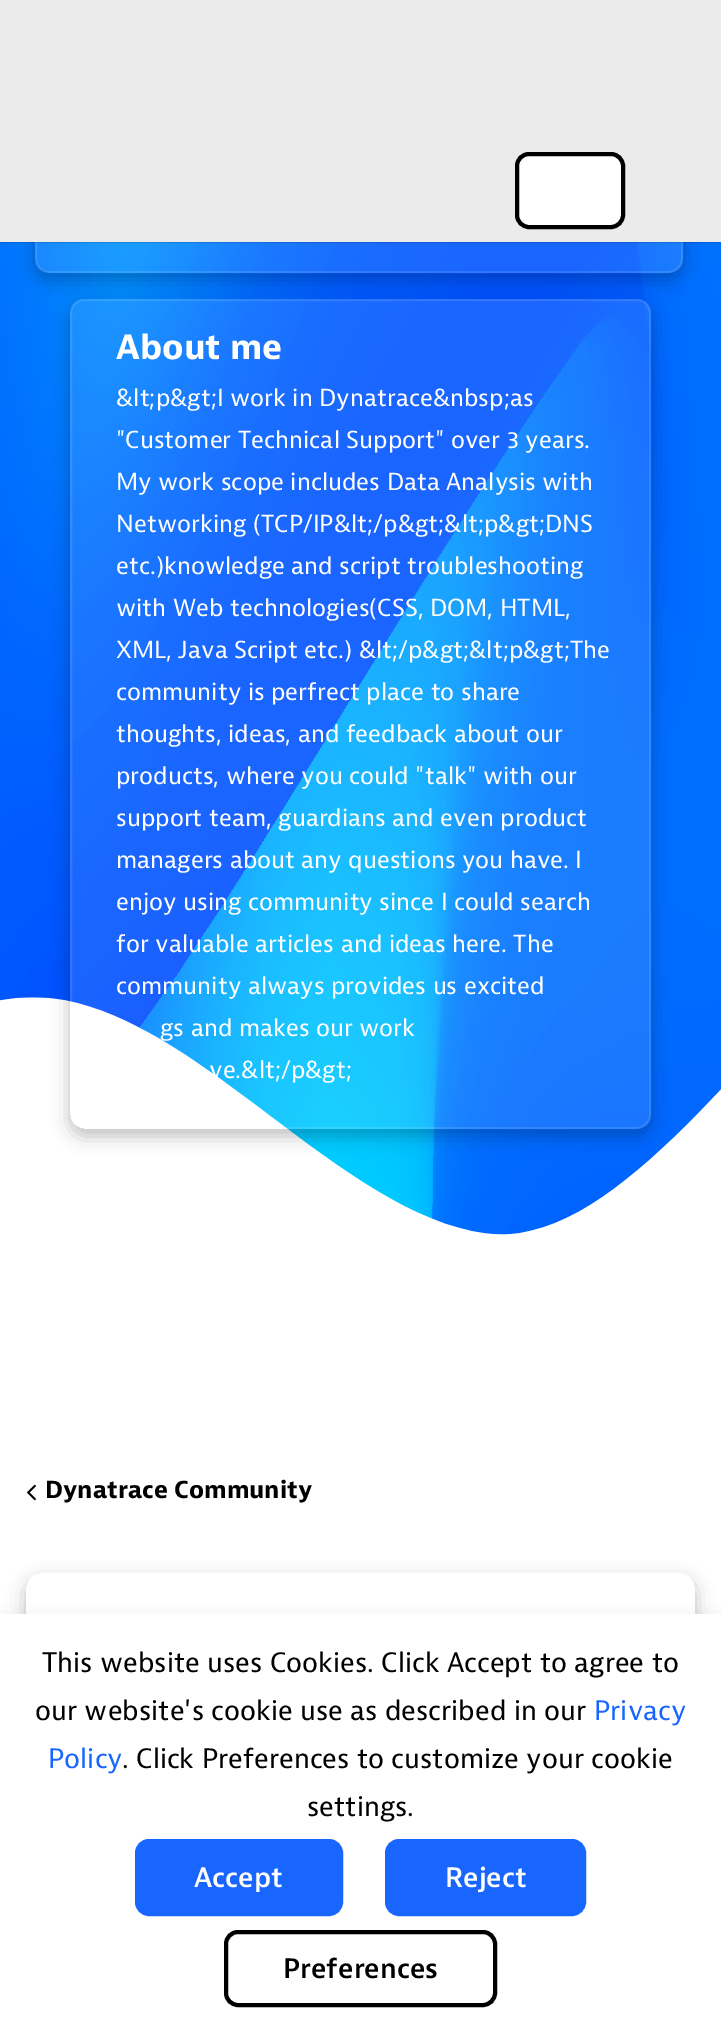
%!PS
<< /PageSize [721 2039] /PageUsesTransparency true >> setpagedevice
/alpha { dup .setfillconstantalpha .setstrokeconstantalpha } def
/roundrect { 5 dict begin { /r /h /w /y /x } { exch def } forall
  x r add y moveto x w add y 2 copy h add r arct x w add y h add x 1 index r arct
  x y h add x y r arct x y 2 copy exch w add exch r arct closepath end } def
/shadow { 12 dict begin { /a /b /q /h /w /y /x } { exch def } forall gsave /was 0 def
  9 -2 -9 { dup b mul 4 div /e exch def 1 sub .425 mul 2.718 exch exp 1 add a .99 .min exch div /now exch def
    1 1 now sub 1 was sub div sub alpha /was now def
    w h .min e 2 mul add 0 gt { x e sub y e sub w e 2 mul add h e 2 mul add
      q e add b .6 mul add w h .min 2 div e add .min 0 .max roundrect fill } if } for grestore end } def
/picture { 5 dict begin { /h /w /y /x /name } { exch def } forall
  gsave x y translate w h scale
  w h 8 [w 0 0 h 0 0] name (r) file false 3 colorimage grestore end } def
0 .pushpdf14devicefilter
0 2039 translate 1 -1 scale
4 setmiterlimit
1 setgray
0 0 721 2039 rectfill
(img1.rgb) 0 242 721 993 picture
gsave
newpath 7 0 moveto 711 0 lineto 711 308 lineto 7 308 lineto closepath 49 -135 moveto 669 -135 lineto 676.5 -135 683 -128.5 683 -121 curveto 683 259 lineto 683 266.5 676.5 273 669 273 curveto 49 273 lineto 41.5 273 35 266.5 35 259 curveto 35 -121 lineto 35 -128.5 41.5 -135 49 -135 curveto closepath eoclip newpath
0 setgray
35 -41 648 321 14 9 0.25 shadow
grestore
0.1 alpha
35 -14 648 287 14 roundrect fill
2 setlinewidth
36 -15 646 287 13 roundrect stroke
0.15 alpha
0 setgray
0 242 721 1 rectfill
1 alpha
0.922 setgray
0 0 721 242 rectfill
1 setgray
517 154 106 73 12 roundrect gsave fill grestore
0 setgray
4 setlinewidth
stroke
gsave
newpath 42 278 moveto 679 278 lineto 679 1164 lineto 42 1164 lineto closepath 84 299 moveto 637 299 lineto 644.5 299 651 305.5 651 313 curveto 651 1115 lineto 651 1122.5 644.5 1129 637 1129 curveto 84 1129 lineto 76.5 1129 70 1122.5 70 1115 curveto 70 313 lineto 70 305.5 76.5 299 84 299 curveto closepath eoclip newpath
70 306 581 830 14 9 0.25 shadow
grestore
0.1 alpha
1 setgray
70 299 581 830 14 roundrect fill
2 setlinewidth
71 300 579 828 13 roundrect stroke
/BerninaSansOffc-Bold [35 0 0 -35 0 0] selectfont
1 alpha
116 359 moveto (About me) show
/BerninaSansOffc-Regular [24.5 0 0 -24.5 0 0] selectfont
116 406 moveto (&lt;p&gt;I work in Dynatrace&nbsp;as) show
116 448 moveto ("Customer Technical Support" over 3 years.) show
116 490 moveto (My work scope includes Data Analysis with) show
116 532 moveto (Networking \(TCP/IP&lt;/p&gt;&lt;p&gt;DNS) show
116 574 moveto (etc.\)knowledge and script troubleshooting) show
116 616 moveto (with Web technologies\(CSS, DOM, HTML,) show
116 658 moveto (XML, Java Script etc.\) &lt;/p&gt;&lt;p&gt;The) show
116 700 moveto (community is perfrect place to share) show
116 742 moveto (thoughts, ideas, and feedback about our) show
116 784 moveto (products, where you could "talk" with our) show
116 826 moveto (support team, guardians and even product) show
116 868 moveto (managers about any questions you have. I) show
116 910 moveto (enjoy using community since I could search) show
116 952 moveto (for valuable articles and ideas here. The) show
116 994 moveto (community always provides us excited) show
160 1036 moveto (gs and makes our work) show
209 1078 moveto (ve.&lt;/p&gt;) show
(img2.rgb) 27 1484 9 17 picture
/BerninaSansOffc-Bold [24.5 0 0 -24.5 0 0] selectfont
0 setgray
45 1498 moveto (Dynatrace Community) show
gsave
newpath 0 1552 moveto 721 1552 lineto 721 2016 lineto 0 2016 lineto closepath 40 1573 moveto 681 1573 lineto 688.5 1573 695 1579.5 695 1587 curveto 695 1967 lineto 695 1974.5 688.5 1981 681 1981 curveto 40 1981 lineto 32.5 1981 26 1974.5 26 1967 curveto 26 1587 lineto 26 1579.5 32.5 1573 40 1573 curveto closepath eoclip newpath
26 1580 669 408 14 9 0.25 shadow
grestore
0.008 0.035 0.106 setrgbcolor
0 1621 721 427 0 9 0.15 shadow
1 setgray
0 1614 721 425 rectfill
/BerninaSansOffc-Regular [28 0 0 -28 0 0] selectfont
0 setgray
42 1672 moveto (This website uses Cookies. Click Accept to agree to) show
35 1720 moveto (our website's cookie use as described in our) show
0.098 0.4 1 setrgbcolor
594 1720 moveto (Privacy) show
48 1768 moveto (Policy) show
0 setgray
122 1768 moveto (. Click Preferences to customize your cookie) show
307 1816 moveto (settings.) show
0.098 0.4 1 setrgbcolor
137 1841 204 73 12 roundrect gsave fill grestore
4 setlinewidth
stroke
/BerninaSansOffc-SemiBold [28 0 0 -28 0 0] selectfont
1 setgray
194 1887 moveto (Accept) show
0.098 0.4 1 setrgbcolor
387 1841 197 73 12 roundrect gsave fill grestore
stroke
1 setgray
445 1887 moveto (Reject) show
0 setgray
226 1932 269 73 12 roundrect stroke
283 1978 moveto (Preferences) show
.poppdf14devicefilter showpage
